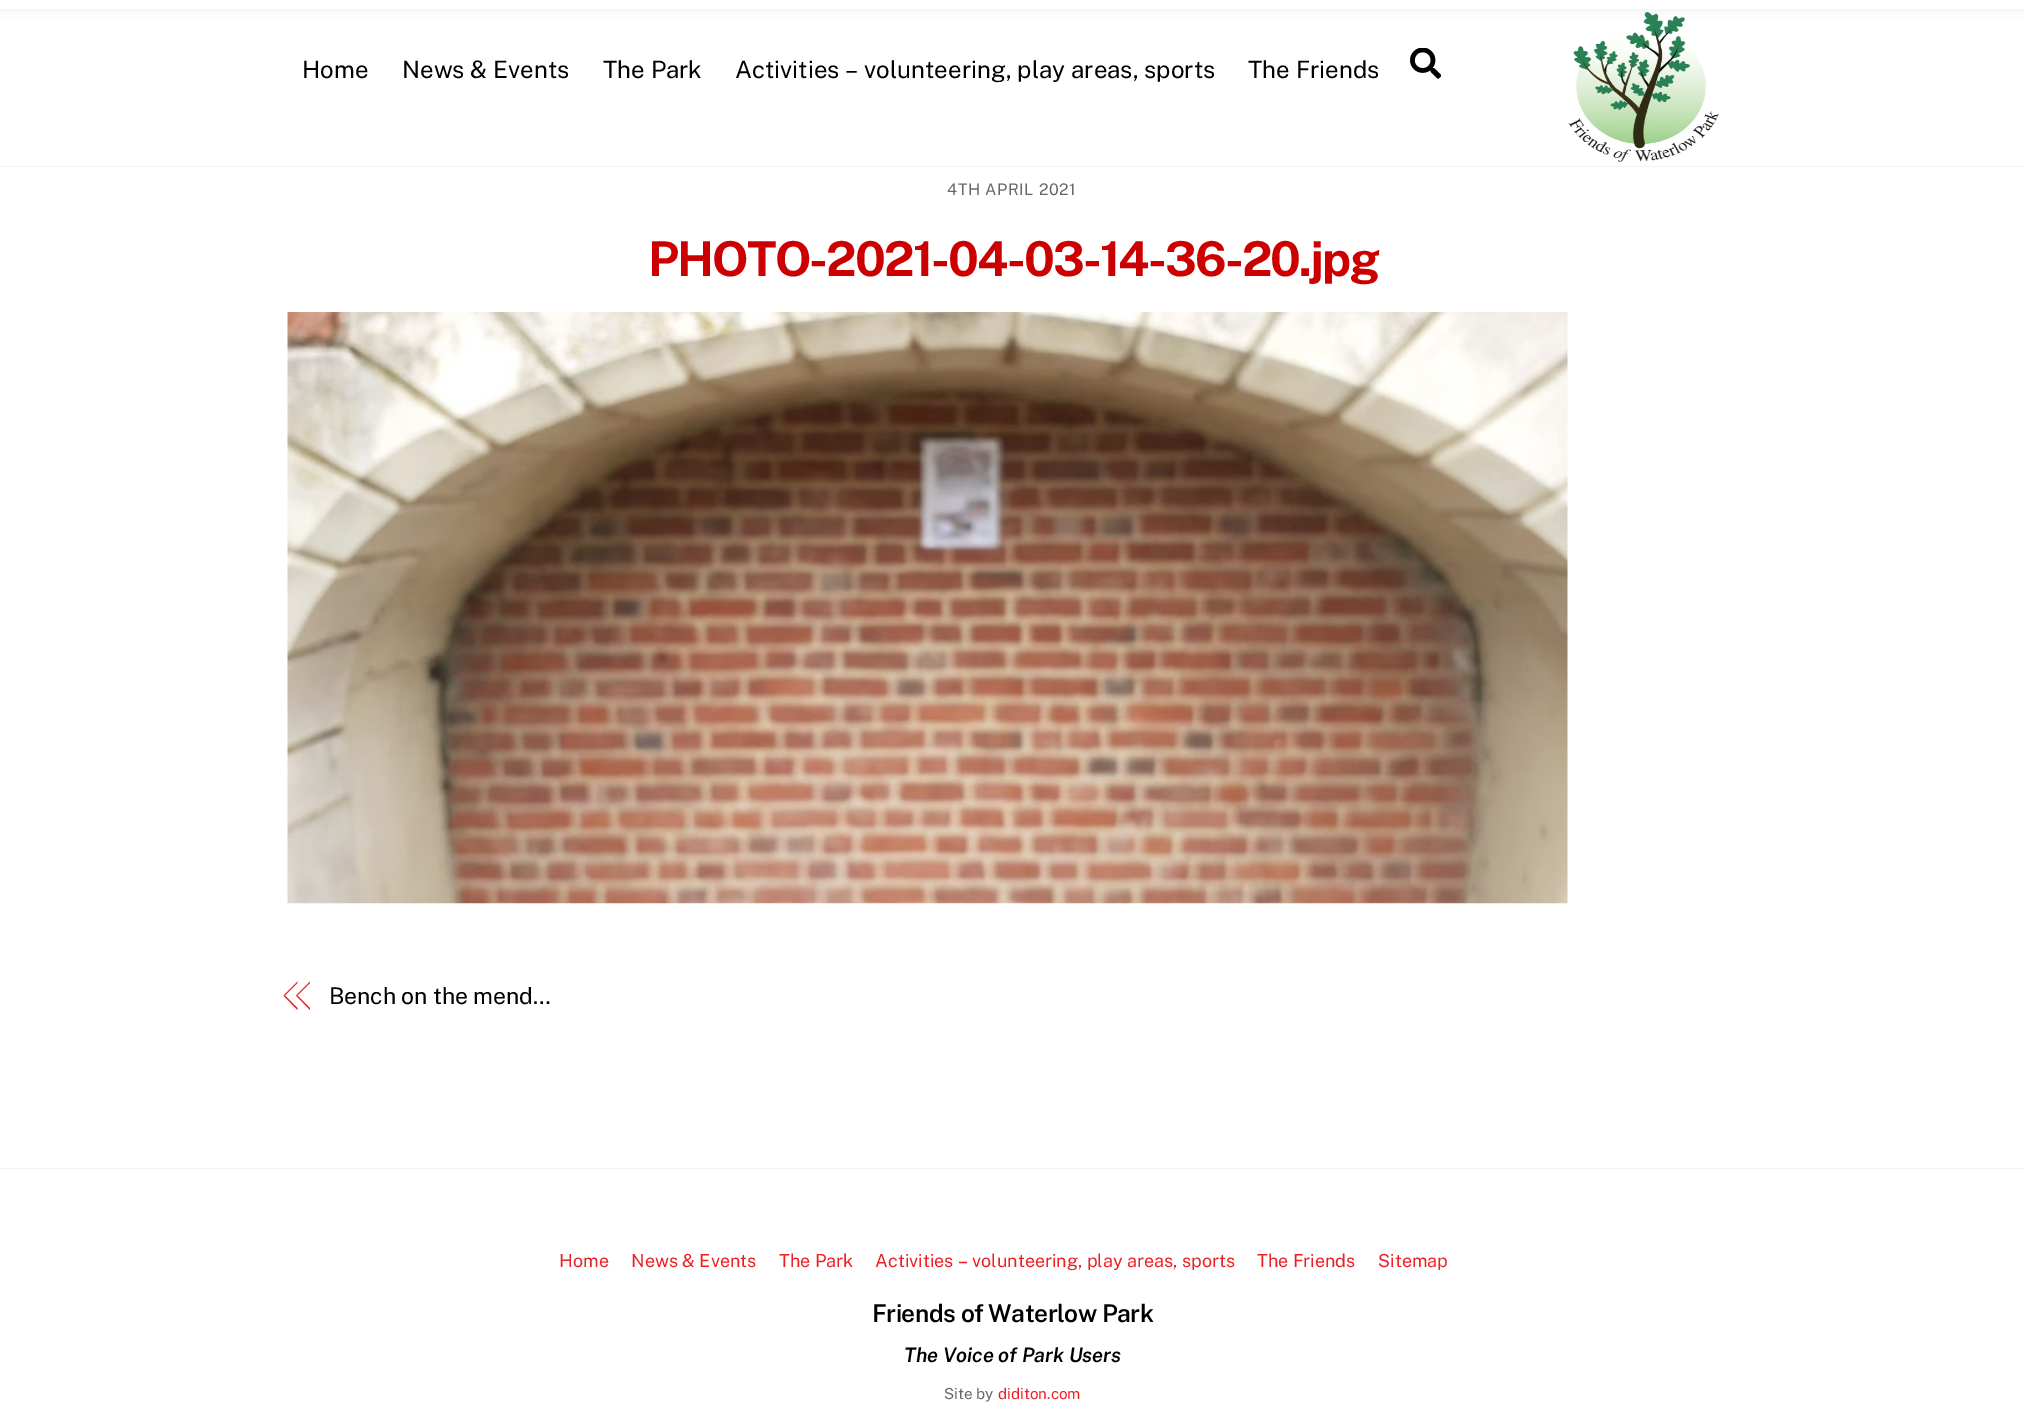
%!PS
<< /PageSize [2024 1412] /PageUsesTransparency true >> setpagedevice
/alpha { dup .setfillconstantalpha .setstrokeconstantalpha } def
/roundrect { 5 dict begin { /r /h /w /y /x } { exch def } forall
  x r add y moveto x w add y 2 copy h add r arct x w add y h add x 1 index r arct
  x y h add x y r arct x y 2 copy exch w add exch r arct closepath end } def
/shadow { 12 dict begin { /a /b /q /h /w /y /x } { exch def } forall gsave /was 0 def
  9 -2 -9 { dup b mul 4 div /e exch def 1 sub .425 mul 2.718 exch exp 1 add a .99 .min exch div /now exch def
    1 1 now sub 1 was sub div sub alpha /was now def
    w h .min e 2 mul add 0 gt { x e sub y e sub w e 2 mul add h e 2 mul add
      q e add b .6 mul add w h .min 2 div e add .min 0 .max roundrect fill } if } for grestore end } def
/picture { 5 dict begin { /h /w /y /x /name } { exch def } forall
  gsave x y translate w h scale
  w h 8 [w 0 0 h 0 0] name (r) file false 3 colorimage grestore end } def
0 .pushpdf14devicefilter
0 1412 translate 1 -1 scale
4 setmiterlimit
1 setgray
0 0 2024 1412 rectfill
(img2.rgb) 1568 12 151 150 picture
0.675 0.671 0.671 setrgbcolor
0 -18 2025 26 0 6 0.3 shadow
1 setgray
0 0 2024 9 rectfill
0.949 setgray
0 166 2024 1 rectfill
/PublicSans-Regular [24 0 0 -24 0 0] selectfont
0 setgray
302 78 moveto (Home) show
402 78 moveto (News & Events) show
603 78 moveto (The Park) show
735 78 moveto (Activities – volunteering, play areas, sports) show
1248 78 moveto (The Friends) show
(img1.rgb) 1410 48 31 31 picture
/PublicSans-Regular [16 0 0 -16 0 0] selectfont
0.4 setgray
947 195 moveto 0.6 0 (4TH APRIL 2021) ashow
/PublicSans-Bold [48 0 0 -48 0 0] selectfont
0.8 0 0 setrgbcolor
648 276 moveto -1.9 0 (PHOTO-2021-04-03-14-36-20.jpg) ashow
(img3.rgb) 287 312 1281 592 picture
0.929 0.118 0.141 setrgbcolor
newpath 283.5 995.5 moveto 297.5 981.5 lineto 297.5 983 lineto 285 995.5 lineto closepath fill
newpath 297.5 1010 moveto 283.5 995.5 lineto 285 995.5 lineto 297.5 1008 lineto closepath fill
newpath 296 995.5 moveto 310 981.5 lineto 310 983 lineto 297.5 995.5 lineto closepath fill
newpath 310 1010 moveto 296 995.5 lineto 297.5 995.5 lineto 310 1008 lineto closepath fill
/PublicSans-Regular [23 0 0 -23 0 0] selectfont
0 setgray
329 1004 moveto -0.1 0 (Bench on the mend…) ashow
0.949 setgray
0 1168 2024 1 rectfill
/PublicSans-Regular [18 0 0 -18 0 0] selectfont
0.929 0.118 0.141 setrgbcolor
559 1267 moveto (Home) show
631 1267 moveto (News & Events) show
779 1267 moveto (The Park) show
875 1267 moveto (Activities – volunteering, play areas, sports) show
1257 1267 moveto (The Friends) show
1378 1267 moveto (Sitemap) show
/PublicSans-SemiBold [24.5 0 0 -24.5 0 0] selectfont
0 setgray
872 1322 moveto -0.5 0 (Friends of Waterlow Park) ashow
/PublicSans-SemiBoldItalic [19.9 0 0 -19.9 0 0] selectfont
904 1362 moveto (The Voice of Park Users) show
/PublicSans-Regular [15.25 0 0 -15.25 0 0] selectfont
0.4 setgray
944 1399 moveto (Site by) show
0.929 0.118 0.141 setrgbcolor
998 1399 moveto (diditon.com) show
.poppdf14devicefilter showpage
